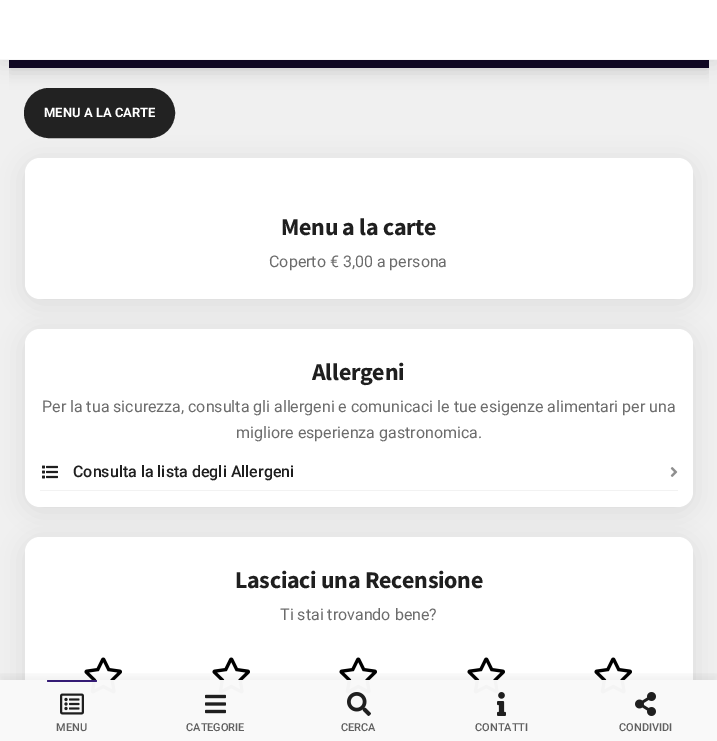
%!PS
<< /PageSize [717 741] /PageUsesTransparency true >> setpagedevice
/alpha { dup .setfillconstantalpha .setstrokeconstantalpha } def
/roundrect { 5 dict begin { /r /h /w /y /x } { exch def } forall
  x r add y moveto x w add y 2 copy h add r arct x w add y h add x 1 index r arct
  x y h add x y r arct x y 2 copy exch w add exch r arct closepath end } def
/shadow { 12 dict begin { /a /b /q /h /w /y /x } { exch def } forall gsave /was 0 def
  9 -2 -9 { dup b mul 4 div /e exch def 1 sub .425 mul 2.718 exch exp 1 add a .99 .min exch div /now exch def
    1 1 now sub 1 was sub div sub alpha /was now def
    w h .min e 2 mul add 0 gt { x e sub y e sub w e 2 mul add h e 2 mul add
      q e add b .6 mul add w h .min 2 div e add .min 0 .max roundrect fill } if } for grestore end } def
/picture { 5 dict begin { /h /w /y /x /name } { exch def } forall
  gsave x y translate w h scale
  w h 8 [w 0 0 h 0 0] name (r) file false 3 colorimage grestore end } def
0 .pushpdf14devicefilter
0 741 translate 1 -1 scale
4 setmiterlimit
0.941 setgray
0 0 717 741 rectfill
gsave
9 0 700 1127 rectclip
0 setgray
9 -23 700 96 0 7.5 0.09 shadow
grestore
gsave newpath 9 60 moveto 709 60 lineto 709 68 lineto 9 68 lineto closepath clip newpath
<< /ShadingType 2 /ColorSpace /DeviceRGB /Coords [359 -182 359 68] /Extend [true true] /Function << /FunctionType 3 /Domain [0 1] /Functions [<< /FunctionType 2 /Domain [0 1] /C0 [0.208 0.11 0.459] /C1 [0.208 0.11 0.459] /N 1 >> << /FunctionType 2 /Domain [0 1] /C0 [0.208 0.11 0.459] /C1 [0.192 0.102 0.427] /N 1 >> << /FunctionType 2 /Domain [0 1] /C0 [0.192 0.102 0.427] /C1 [0.09 0.047 0.2] /N 1 >> << /FunctionType 2 /Domain [0 1] /C0 [0.09 0.047 0.2] /C1 [0.063 0.031 0.137] /N 1 >>] /Bounds [0.2 0.3 0.7] /Encode [0 1 0 1 0 1 0 1] >> >> shfill grestore
0 setgray
25 162 668 141 15 12 0.08 shadow
0.133 setgray
25 89 149 48 24 roundrect gsave fill grestore
2 setlinewidth
stroke
0 setgray
0 4 717 60 0 9 0.08 shadow
1 setgray
0 0 717 59 rectfill
0.969 setgray
0 59 717 1 rectfill
/Roboto-Bold [13 0 0 -13 0 0] selectfont
1 setgray
44 117 moveto (MENU A LA CARTE) show
25 158 668 141 15 roundrect fill
/SourceSansPro-Bold [24 0 0 -24 0 0] selectfont
0.122 setgray
281 235 moveto -0.3 0 (Menu a la carte) ashow
/Roboto-Regular [16 0 0 -16 0 0] selectfont
0.424 setgray
269 267 moveto (Coperto € 3,00 a persona) show
0 setgray
25 333 668 178 15 12 0.08 shadow
1 setgray
25 329 668 178 15 roundrect fill
/SourceSansPro-Bold [24 0 0 -24 0 0] selectfont
0.122 setgray
312 380 moveto -0.3 0 (Allergeni) ashow
/Roboto-Regular [16 0 0 -16 0 0] selectfont
0.424 setgray
42 412 moveto (Per la tua sicurezza, consulta gli allergeni e comunicaci le tue esigenze alimentari per una) show
236 438 moveto (migliore esperienza gastronomica.) show
0.949 setgray
40 490 638 1 rectfill
(img1.rgb) 42 465 16 14 picture
/Roboto-Medium [16 0 0 -16 0 0] selectfont
0.122 setgray
73 477 moveto (Consulta la lista degli Allergeni) show
(img2.rgb) 670 467 8 10 picture
0 setgray
25 541 668 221 15 12 0.08 shadow
1 setgray
25 537 668 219 15 roundrect fill
/SourceSansPro-Bold [24 0 0 -24 0 0] selectfont
0.122 setgray
235 588 moveto -0.3 0 (Lasciaci una Recensione) ashow
/Roboto-Regular [16 0 0 -16 0 0] selectfont
0.424 setgray
280 620 moveto (Ti stai trovando bene?) show
(img3.rgb) 84 657 38 37 picture
(img3.rgb) 212 657 38 37 picture
(img3.rgb) 339 657 38 37 picture
(img3.rgb) 467 657 38 37 picture
(img3.rgb) 594 657 38 37 picture
gsave
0 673 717 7 rectclip
0 setgray
0 675 717 61 0 5 0.06 shadow
grestore
0.98 alpha
0.976 setgray
0 680 717 61 rectfill
1 alpha
0.208 0.11 0.459 setrgbcolor
47 680 50 2 1 roundrect fill
(img4.rgb) 60 693 24 22 picture
/Roboto-Medium [11 0 0 -11 0 0] selectfont
0.376 setgray
56 731 moveto (MENU) show
(img5.rgb) 205 694 21 20 picture
186 731 moveto (CATEGORIE) show
(img6.rgb) 347 692 24 24 picture
341 731 moveto (CERCA) show
(img7.rgb) 497 692 9 24 picture
475 731 moveto (CONTATTI) show
(img8.rgb) 635 692 21 24 picture
619 731 moveto (CONDIVIDI) show
.poppdf14devicefilter showpage
